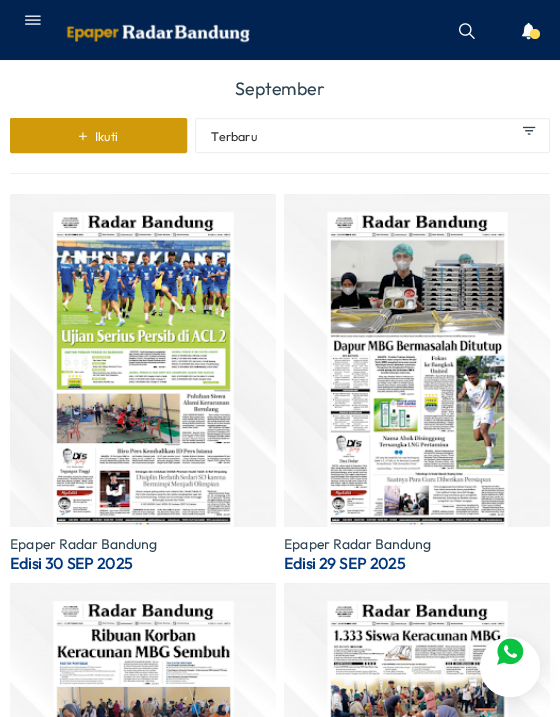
%!PS
<< /PageSize [560 717] /PageUsesTransparency true >> setpagedevice
/alpha { dup .setfillconstantalpha .setstrokeconstantalpha } def
/roundrect { 5 dict begin { /r /h /w /y /x } { exch def } forall
  x r add y moveto x w add y 2 copy h add r arct x w add y h add x 1 index r arct
  x y h add x y r arct x y 2 copy exch w add exch r arct closepath end } def
/shadow { 12 dict begin { /a /b /q /h /w /y /x } { exch def } forall gsave /was 0 def
  9 -2 -9 { dup b mul 4 div /e exch def 1 sub .425 mul 2.718 exch exp 1 add a .99 .min exch div /now exch def
    1 1 now sub 1 was sub div sub alpha /was now def
    w h .min e 2 mul add 0 gt { x e sub y e sub w e 2 mul add h e 2 mul add
      q e add b .6 mul add w h .min 2 div e add .min 0 .max roundrect fill } if } for grestore end } def
/picture { 5 dict begin { /h /w /y /x /name } { exch def } forall
  gsave x y translate w h scale
  w h 8 [w 0 0 h 0 0] name (r) file false 3 colorimage grestore end } def
0 .pushpdf14devicefilter
0 717 translate 1 -1 scale
4 setmiterlimit
1 setgray
0 0 560 717 rectfill
0.961 setgray
0 60 560 1 rectfill
0 0.137 0.322 setrgbcolor
0 0 560 60 rectfill
(img1.rgb) 25 15 16 10 picture
(img2.rgb) 459 23 16 16 picture
0 0.129 0.302 setrgbcolor
498 0 1 60 rectfill
(img3.rgb) 522 22 12 18 picture
0 setgray
530 31 10 10 5 3 0.1 shadow
0.996 0.847 0.349 setrgbcolor
newpath 535 34 5 0 360 arc closepath fill
(img4.rgb) 66 24 184 19 picture
0.941 setgray
10 173 540 1 rectfill
/Outfit-Thin [18 0 0 -18 0 0] selectfont
0.176 0.263 0.318 setrgbcolor
235 95 moveto (September) show
0.82 0.604 0.043 setrgbcolor
10.5 118.5 176 34 1.5 roundrect gsave fill grestore
stroke
(img5.rgb) 79 132 8 9 picture
/Outfit-Thin [12.5 0 0 -12.5 0 0] selectfont
1 setgray
95 141 moveto (Ikuti) show
(img6.rgb) 523 126 13 9 picture
0.941 setgray
195.5 118.5 354 34 1.5 roundrect stroke
0.2 setgray
211 141 moveto (Terbaru) show
(img7.rgb) 10 194 266 333 picture
/Outfit-Thin [14 0 0 -14 0 0] selectfont
0.176 0.263 0.318 setrgbcolor
10 549 moveto (Epaper Radar Bandung) show
/Outfit-Bold [15.5 0 0 -15.5 0 0] selectfont
0 0.216 0.498 setrgbcolor
10 569 moveto (Edisi 30 SEP 2025) show
(img8.rgb) 284 194 266 333 picture
/Outfit-Thin [14 0 0 -14 0 0] selectfont
0.176 0.263 0.318 setrgbcolor
284 549 moveto (Epaper Radar Bandung) show
/Outfit-Bold [15.5 0 0 -15.5 0 0] selectfont
0 0.216 0.498 setrgbcolor
284 569 moveto (Edisi 29 SEP 2025) show
(img9.rgb) 10 583 266 134 picture
(img10.rgb) 284 583 266 134 picture
0 setgray
480 642 60 60 30 7.5 0.08 shadow
1 setgray
newpath 510 667 30 0 360 arc closepath fill
(img11.rgb) 497 638 27 27 picture
.poppdf14devicefilter showpage
